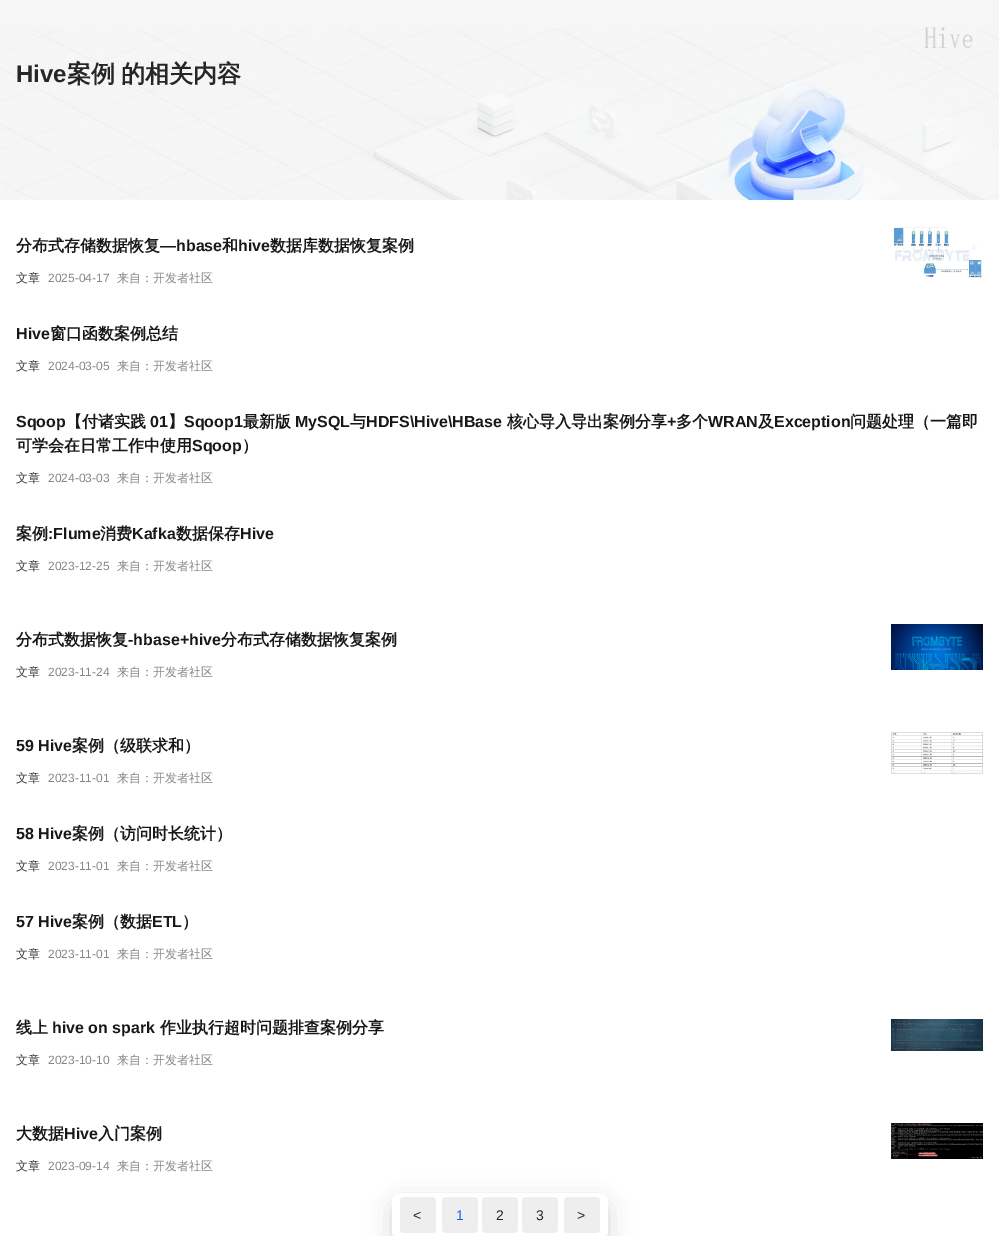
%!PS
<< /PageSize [999 1236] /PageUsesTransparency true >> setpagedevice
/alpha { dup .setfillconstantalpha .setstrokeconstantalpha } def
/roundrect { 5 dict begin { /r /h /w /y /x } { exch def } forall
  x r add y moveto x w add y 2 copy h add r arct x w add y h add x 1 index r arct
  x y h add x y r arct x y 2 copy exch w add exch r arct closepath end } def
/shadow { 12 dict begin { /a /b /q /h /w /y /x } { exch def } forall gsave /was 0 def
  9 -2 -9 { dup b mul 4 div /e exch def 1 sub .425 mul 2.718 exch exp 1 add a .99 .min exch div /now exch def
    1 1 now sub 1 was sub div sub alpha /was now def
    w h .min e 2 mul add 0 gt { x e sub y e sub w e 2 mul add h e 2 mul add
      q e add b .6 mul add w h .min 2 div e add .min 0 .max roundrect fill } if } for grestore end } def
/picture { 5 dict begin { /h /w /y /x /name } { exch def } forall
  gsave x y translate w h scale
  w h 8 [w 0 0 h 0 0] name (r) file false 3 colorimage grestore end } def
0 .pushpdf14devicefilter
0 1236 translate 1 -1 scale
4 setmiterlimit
1 setgray
0 0 999 1236 rectfill
0.965 setgray
0 0 999 29 rectfill
(img2.rgb) 0 29 999 171 picture
(img1.rgb) 924 27 49 21 picture
/LiberationSans-Bold [24 0 0 -24 0 0] selectfont
0.149 setgray
16 82 moveto (Hive) show
/WenQuanYiZenHei-Bold [24 0 0 -24 0 0] selectfont
67 82 moveto -1 0 32 (案例 的相关内容) widthshow
/WenQuanYiZenHei-Bold [16 0 0 -16 0 0] selectfont
0.094 setgray
16 251 moveto (分布式存储数据恢复) show
/LiberationSans-Bold [16 0 0 -16 0 0] selectfont
160 251 moveto (—hbase) show
/WenQuanYiZenHei-Bold [16 0 0 -16 0 0] selectfont
222 251 moveto (和) show
/LiberationSans-Bold [16 0 0 -16 0 0] selectfont
238 251 moveto (hive) show
/WenQuanYiZenHei-Bold [16 0 0 -16 0 0] selectfont
270 251 moveto (数据库数据恢复案例) show
/WenQuanYiZenHei-Medium [12 0 0 -12 0 0] selectfont
0.239 setgray
16 282 moveto (文章) show
/LiberationSans-Regular [12 0 0 -12 0 0] selectfont
0.525 setgray
48 282 moveto (2025-04-17) show
/WenQuanYiZenHei-Medium [12 0 0 -12 0 0] selectfont
117 282 moveto (来自：开发者社区) show
(img3.rgb) 893 227 89 51 picture
/LiberationSans-Bold [16 0 0 -16 0 0] selectfont
0.094 setgray
16 339 moveto (Hive) show
/WenQuanYiZenHei-Bold [16 0 0 -16 0 0] selectfont
50 339 moveto (窗口函数案例总结) show
/WenQuanYiZenHei-Medium [12 0 0 -12 0 0] selectfont
0.239 setgray
16 370 moveto (文章) show
/LiberationSans-Regular [12 0 0 -12 0 0] selectfont
0.525 setgray
48 370 moveto (2024-03-05) show
/WenQuanYiZenHei-Medium [12 0 0 -12 0 0] selectfont
117 370 moveto (来自：开发者社区) show
/LiberationSans-Bold [16 0 0 -16 0 0] selectfont
0.094 setgray
16 427 moveto (Sqoop) show
/WenQuanYiZenHei-Bold [16 0 0 -16 0 0] selectfont
66 427 moveto (【付诸实践) show
/LiberationSans-Bold [16 0 0 -16 0 0] selectfont
150 427 moveto (01) show
/WenQuanYiZenHei-Bold [16 0 0 -16 0 0] selectfont
168 427 moveto (】) show
/LiberationSans-Bold [16 0 0 -16 0 0] selectfont
184 427 moveto (Sqoop1) show
/WenQuanYiZenHei-Bold [16 0 0 -16 0 0] selectfont
243 427 moveto (最新版) show
/LiberationSans-Bold [16 0 0 -16 0 0] selectfont
295 427 moveto (MySQL) show
/WenQuanYiZenHei-Bold [16 0 0 -16 0 0] selectfont
350 427 moveto (与) show
/LiberationSans-Bold [16 0 0 -16 0 0] selectfont
366 427 moveto (HDFS\\Hive\\HBase) show
/WenQuanYiZenHei-Bold [16 0 0 -16 0 0] selectfont
507 427 moveto (核心导入导出案例分享) show
/LiberationSans-Bold [16 0 0 -16 0 0] selectfont
667 427 moveto (+) show
/WenQuanYiZenHei-Bold [16 0 0 -16 0 0] selectfont
676 427 moveto (多个) show
/LiberationSans-Bold [16 0 0 -16 0 0] selectfont
708 427 moveto (WRAN) show
/WenQuanYiZenHei-Bold [16 0 0 -16 0 0] selectfont
758 427 moveto (及) show
/LiberationSans-Bold [16 0 0 -16 0 0] selectfont
774 427 moveto (Exception) show
/WenQuanYiZenHei-Bold [16 0 0 -16 0 0] selectfont
850 427 moveto (问题处理（一篇即) show
16 451 moveto (可学会在日常工作中使用) show
/LiberationSans-Bold [16 0 0 -16 0 0] selectfont
192 451 moveto (Sqoop) show
/WenQuanYiZenHei-Bold [16 0 0 -16 0 0] selectfont
242 451 moveto (）) show
/WenQuanYiZenHei-Medium [12 0 0 -12 0 0] selectfont
0.239 setgray
16 482 moveto (文章) show
/LiberationSans-Regular [12 0 0 -12 0 0] selectfont
0.525 setgray
48 482 moveto (2024-03-03) show
/WenQuanYiZenHei-Medium [12 0 0 -12 0 0] selectfont
117 482 moveto (来自：开发者社区) show
/WenQuanYiZenHei-Bold [16 0 0 -16 0 0] selectfont
0.094 setgray
16 539 moveto (案例) show
/LiberationSans-Bold [16 0 0 -16 0 0] selectfont
48 539 moveto (:Flume) show
/WenQuanYiZenHei-Bold [16 0 0 -16 0 0] selectfont
100 539 moveto (消费) show
/LiberationSans-Bold [16 0 0 -16 0 0] selectfont
132 539 moveto (Kafka) show
/WenQuanYiZenHei-Bold [16 0 0 -16 0 0] selectfont
176 539 moveto (数据保存) show
/LiberationSans-Bold [16 0 0 -16 0 0] selectfont
240 539 moveto (Hive) show
/WenQuanYiZenHei-Medium [12 0 0 -12 0 0] selectfont
0.239 setgray
16 570 moveto (文章) show
/LiberationSans-Regular [12 0 0 -12 0 0] selectfont
0.525 setgray
48 570 moveto (2023-12-25) show
/WenQuanYiZenHei-Medium [12 0 0 -12 0 0] selectfont
117 570 moveto (来自：开发者社区) show
/WenQuanYiZenHei-Bold [16 0 0 -16 0 0] selectfont
0.094 setgray
16 645 moveto (分布式数据恢复) show
/LiberationSans-Bold [16 0 0 -16 0 0] selectfont
128 645 moveto (-hbase+hive) show
/WenQuanYiZenHei-Bold [16 0 0 -16 0 0] selectfont
221 645 moveto (分布式存储数据恢复案例) show
/WenQuanYiZenHei-Medium [12 0 0 -12 0 0] selectfont
0.239 setgray
16 676 moveto (文章) show
/LiberationSans-Regular [12 0 0 -12 0 0] selectfont
0.525 setgray
48 676 moveto (2023-11-24) show
/WenQuanYiZenHei-Medium [12 0 0 -12 0 0] selectfont
117 676 moveto (来自：开发者社区) show
(img4.rgb) 891 624 92 46 picture
/LiberationSans-Bold [16 0 0 -16 0 0] selectfont
0.094 setgray
16 751 moveto (59 Hive) show
/WenQuanYiZenHei-Bold [16 0 0 -16 0 0] selectfont
72 751 moveto (案例（级联求和）) show
/WenQuanYiZenHei-Medium [12 0 0 -12 0 0] selectfont
0.239 setgray
16 782 moveto (文章) show
/LiberationSans-Regular [12 0 0 -12 0 0] selectfont
0.525 setgray
48 782 moveto (2023-11-01) show
/WenQuanYiZenHei-Medium [12 0 0 -12 0 0] selectfont
117 782 moveto (来自：开发者社区) show
(img5.rgb) 891 732 92 42 picture
/LiberationSans-Bold [16 0 0 -16 0 0] selectfont
0.094 setgray
16 839 moveto (58 Hive) show
/WenQuanYiZenHei-Bold [16 0 0 -16 0 0] selectfont
72 839 moveto (案例（访问时长统计）) show
/WenQuanYiZenHei-Medium [12 0 0 -12 0 0] selectfont
0.239 setgray
16 870 moveto (文章) show
/LiberationSans-Regular [12 0 0 -12 0 0] selectfont
0.525 setgray
48 870 moveto (2023-11-01) show
/WenQuanYiZenHei-Medium [12 0 0 -12 0 0] selectfont
117 870 moveto (来自：开发者社区) show
/LiberationSans-Bold [16 0 0 -16 0 0] selectfont
0.094 setgray
16 927 moveto (57 Hive) show
/WenQuanYiZenHei-Bold [16 0 0 -16 0 0] selectfont
72 927 moveto (案例（数据) show
/LiberationSans-Bold [16 0 0 -16 0 0] selectfont
152 927 moveto (ETL) show
/WenQuanYiZenHei-Bold [16 0 0 -16 0 0] selectfont
182 927 moveto (）) show
/WenQuanYiZenHei-Medium [12 0 0 -12 0 0] selectfont
0.239 setgray
16 958 moveto (文章) show
/LiberationSans-Regular [12 0 0 -12 0 0] selectfont
0.525 setgray
48 958 moveto (2023-11-01) show
/WenQuanYiZenHei-Medium [12 0 0 -12 0 0] selectfont
117 958 moveto (来自：开发者社区) show
/WenQuanYiZenHei-Bold [16 0 0 -16 0 0] selectfont
0.094 setgray
16 1033 moveto (线上) show
/LiberationSans-Bold [16 0 0 -16 0 0] selectfont
52 1033 moveto (hive on spark) show
/WenQuanYiZenHei-Bold [16 0 0 -16 0 0] selectfont
160 1033 moveto (作业执行超时问题排查案例分享) show
/WenQuanYiZenHei-Medium [12 0 0 -12 0 0] selectfont
0.239 setgray
16 1064 moveto (文章) show
/LiberationSans-Regular [12 0 0 -12 0 0] selectfont
0.525 setgray
48 1064 moveto (2023-10-10) show
/WenQuanYiZenHei-Medium [12 0 0 -12 0 0] selectfont
117 1064 moveto (来自：开发者社区) show
(img6.rgb) 891 1019 92 32 picture
/WenQuanYiZenHei-Bold [16 0 0 -16 0 0] selectfont
0.094 setgray
16 1139 moveto (大数据) show
/LiberationSans-Bold [16 0 0 -16 0 0] selectfont
64 1139 moveto (Hive) show
/WenQuanYiZenHei-Bold [16 0 0 -16 0 0] selectfont
98 1139 moveto (入门案例) show
/WenQuanYiZenHei-Medium [12 0 0 -12 0 0] selectfont
0.239 setgray
16 1170 moveto (文章) show
/LiberationSans-Regular [12 0 0 -12 0 0] selectfont
0.525 setgray
48 1170 moveto (2023-09-14) show
/WenQuanYiZenHei-Medium [12 0 0 -12 0 0] selectfont
117 1170 moveto (来自：开发者社区) show
(img7.rgb) 891 1123 92 36 picture
0 setgray
392 1201 216 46 8 12 0.16 shadow
1 setgray
392 1193 216 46 8 roundrect fill
0.933 setgray
400 1197 36 36 4 roundrect fill
/LiberationSans-Regular [14 0 0 -14 0 0] selectfont
0.149 setgray
413 1220 moveto (<) show
0.933 setgray
442 1197 36 36 4 roundrect fill
0.075 0.4 0.925 setrgbcolor
456 1220 moveto (1) show
0.933 setgray
482 1197 36 36 4 roundrect fill
0.149 setgray
496 1220 moveto (2) show
0.933 setgray
522 1197 36 36 4 roundrect fill
0.149 setgray
536 1220 moveto (3) show
0.933 setgray
564 1197 36 36 4 roundrect fill
0.149 setgray
577 1220 moveto (>) show
.poppdf14devicefilter showpage
